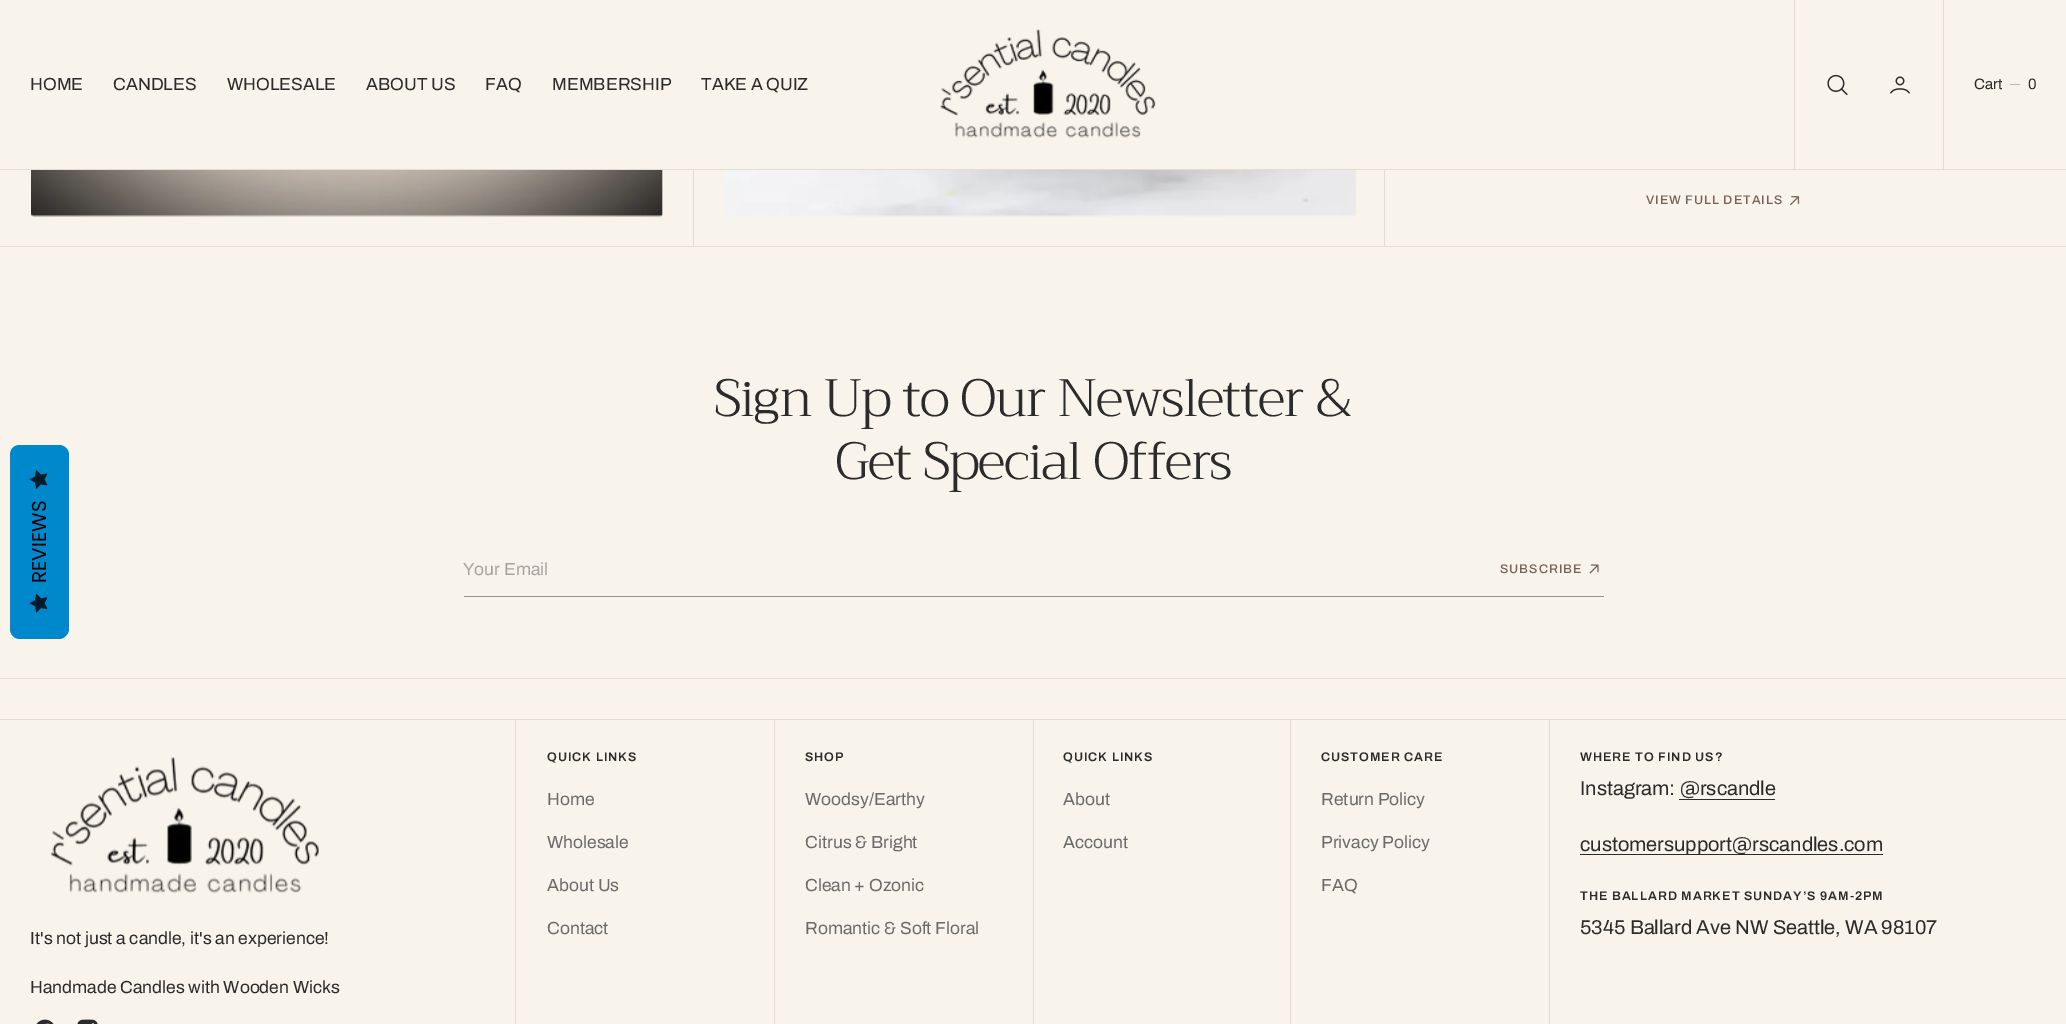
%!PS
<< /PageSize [2066 1024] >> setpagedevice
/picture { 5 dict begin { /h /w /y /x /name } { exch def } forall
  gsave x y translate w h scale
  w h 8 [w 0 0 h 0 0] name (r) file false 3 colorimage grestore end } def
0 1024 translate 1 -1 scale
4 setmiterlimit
0.973 0.957 0.925 setrgbcolor
0 0 2066 1024 rectfill
0.886 0.867 0.816 setrgbcolor
0 169 2066 1 rectfill
/Archivo-Regular [17.5 0 0 -17.5 0 0] selectfont
0.169 setgray
30 90 moveto (HOME) show
113 90 moveto (CANDLES) show
227 90 moveto (WHOLESALE) show
366 90 moveto (ABOUT US) show
485 90 moveto (FAQ) show
552 90 moveto (MEMBERSHIP) show
701 90 moveto (TAKE A QUIZ) show
(img1.rgb) 940 29 216 109 picture
0.886 0.867 0.816 setrgbcolor
1794 0 1 169 rectfill
(img2.rgb) 1827 74 21 22 picture
(img3.rgb) 1890 76 20 18 picture
1943 0 1 169 rectfill
/Archivo-Regular [15 0 0 -15 0 0] selectfont
0.169 setgray
1974 89 moveto (Cart) show
0.729 0.722 0.698 setrgbcolor
2010 84 10 1 rectfill
0.169 setgray
2028 89 moveto (0) show
0.886 0.867 0.816 setrgbcolor
0 246 2066 1 rectfill
693 170 1 76 rectfill
(img4.rgb) 31 170 632 47 picture
(img5.rgb) 724 170 633 47 picture
1384 170 1 76 rectfill
/Archivo-Medium [12.5 0 0 -12.5 0 0] selectfont
0.455 0.388 0.333 setrgbcolor
1646 204 moveto 1 0 (VIEW FULL DETAILS) ashow
(img6.rgb) 1790 196 10 10 picture
0 0.533 0.8 setrgbcolor
newpath 10 629 moveto 10 455 lineto 10 449 14 445 20 445 curveto 59 445 lineto 64 445 69 449 69 455 curveto 69 629 lineto 69 634 64 639 59 639 curveto 20 639 lineto 14 639 10 634 10 629 curveto closepath fill
(img7.rgb) 29 470 19 19 picture
/Poppins-Regular [20 0 0 -20 0 0] selectfont
0 setgray
gsave 46 583 translate -90 rotate 0 0 moveto (REVIEWS) show grestore
(img8.rgb) 29 594 19 19 picture
0.886 0.867 0.816 setrgbcolor
0 678 2066 1 rectfill
/Trirong-Light [52.5 0 0 -52.5 0 0] selectfont
0.169 setgray
714 416 moveto -1.6 0 (Sign Up to Our Newsletter &) ashow
835 479 moveto -1.6 0 (Get Special Offers) ashow
0.584 0.58 0.573 setrgbcolor
464 596 1140 1 rectfill
/Archivo-Regular [17.5 0 0 -17.5 0 0] selectfont
0.651 0.643 0.624 setrgbcolor
463 575 moveto (Your Email) show
/Archivo-Medium [12.5 0 0 -12.5 0 0] selectfont
0.455 0.388 0.333 setrgbcolor
1500 573 moveto 1 0 (SUBSCRIBE) ashow
(img9.rgb) 1589 564 10 10 picture
0.886 0.867 0.816 setrgbcolor
0 719 2066 1 rectfill
774 720 1 304 rectfill
/Archivo-SemiBold [12.5 0 0 -12.5 0 0] selectfont
0.169 setgray
547 761 moveto 1 0 (QUICK LINKS) ashow
/Archivo-Regular [17.5 0 0 -17.5 0 0] selectfont
0.42 setgray
547 805 moveto (Home) show
547 848 moveto (Wholesale) show
547 891 moveto (About Us) show
547 934 moveto (Contact) show
0.886 0.867 0.816 setrgbcolor
1033 720 1 304 rectfill
/Archivo-SemiBold [12.5 0 0 -12.5 0 0] selectfont
0.169 setgray
805 761 moveto 1 0 (SHOP) ashow
/Archivo-Regular [17.5 0 0 -17.5 0 0] selectfont
0.42 setgray
805 805 moveto (Woodsy/Earthy) show
805 848 moveto (Citrus & Bright) show
805 891 moveto (Clean + Ozonic) show
805 934 moveto (Romantic & Soft Floral) show
0.886 0.867 0.816 setrgbcolor
1290 720 1 304 rectfill
/Archivo-SemiBold [12.5 0 0 -12.5 0 0] selectfont
0.169 setgray
1063 761 moveto 1 0 (QUICK LINKS) ashow
/Archivo-Regular [17.5 0 0 -17.5 0 0] selectfont
0.42 setgray
1063 805 moveto (About) show
1063 848 moveto (Account) show
0.886 0.867 0.816 setrgbcolor
1549 720 1 304 rectfill
/Archivo-SemiBold [12.5 0 0 -12.5 0 0] selectfont
0.169 setgray
1321 761 moveto 1 0 (CUSTOMER CARE) ashow
/Archivo-Regular [17.5 0 0 -17.5 0 0] selectfont
0.42 setgray
1321 805 moveto (Return Policy) show
1321 848 moveto (Privacy Policy) show
1321 891 moveto (FAQ) show
/Archivo-SemiBold [12.5 0 0 -12.5 0 0] selectfont
0.169 setgray
1580 761 moveto 1 0 (WHERE TO FIND US?) ashow
/Archivo-Regular [20 0 0 -20 0 0] selectfont
1580 795 moveto (Instagram: @rscandle) show
1679 799 96 1 rectfill
1580 854 303 1 rectfill
1580 851 moveto (customersupport@rscandles.com) show
/Archivo-SemiBold [12.5 0 0 -12.5 0 0] selectfont
1580 900 moveto 1 0 (THE BALLARD MARKET SUNDAY’S 9AM-2PM) ashow
/Archivo-Regular [20 0 0 -20 0 0] selectfont
1580 934 moveto (5345 Ballard Ave NW Seattle, WA 98107) show
0.886 0.867 0.816 setrgbcolor
515 720 1 304 rectfill
(img10.rgb) 51 757 268 137 picture
/Archivo-Regular [17.5 0 0 -17.5 0 0] selectfont
0.169 setgray
30 944 moveto (It's not just a candle, it's an experience!) show
30 993 moveto (Handmade Candles with Wooden Wicks) show
(img11.rgb) 36 1019 18 5 picture
(img12.rgb) 77 1019 21 5 picture
showpage
